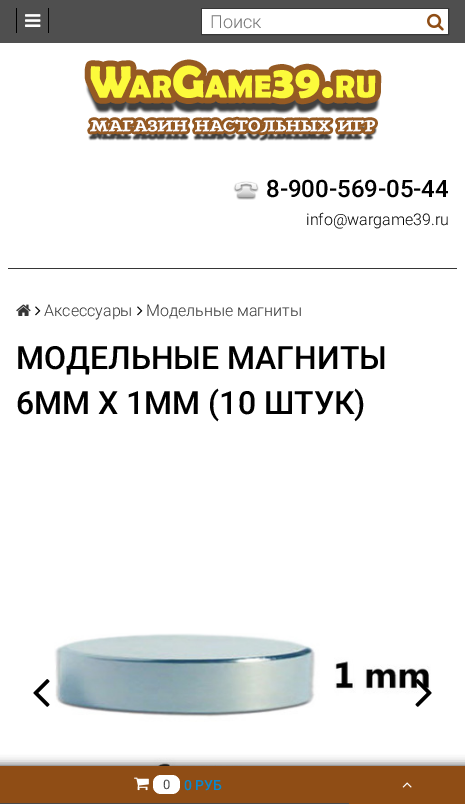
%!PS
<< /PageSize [465 804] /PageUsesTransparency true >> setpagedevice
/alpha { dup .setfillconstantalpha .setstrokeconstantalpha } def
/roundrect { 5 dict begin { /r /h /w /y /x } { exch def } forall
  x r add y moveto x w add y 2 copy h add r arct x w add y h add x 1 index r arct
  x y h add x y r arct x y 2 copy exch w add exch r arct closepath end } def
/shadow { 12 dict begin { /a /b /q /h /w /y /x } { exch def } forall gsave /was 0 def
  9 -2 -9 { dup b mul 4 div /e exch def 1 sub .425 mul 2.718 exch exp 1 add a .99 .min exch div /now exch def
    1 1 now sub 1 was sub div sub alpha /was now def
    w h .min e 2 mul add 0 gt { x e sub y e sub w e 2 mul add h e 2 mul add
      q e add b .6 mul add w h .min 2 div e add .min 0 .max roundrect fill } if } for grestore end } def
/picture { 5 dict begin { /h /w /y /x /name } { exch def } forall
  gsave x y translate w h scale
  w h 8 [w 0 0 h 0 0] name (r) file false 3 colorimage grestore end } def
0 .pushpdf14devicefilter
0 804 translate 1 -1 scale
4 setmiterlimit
0.31 setgray
0 0 465 804 rectfill
0 setgray
48 8 1 25 rectfill
16 8 1 25 rectfill
(img1.rgb) 25 14 16 13 picture
0.212 setgray
201.5 8.5 247 26 rectstroke
1 setgray
202 9 246 25 rectfill
/Roboto-Light [18 0 0 -18 0 0] selectfont
0.459 setgray
210 28 moveto (Поиск) show
(img2.rgb) 427 13 17 18 picture
1 setgray
0 43 465 723 rectfill
(img3.rgb) 84 59 298 83 picture
(img4.rgb) 233 181 26 19 picture
/Roboto-Medium [24 0 0 -24 0 0] selectfont
0 setgray
266 197 moveto (8-900-569-05-44) show
/Roboto-Light [16 0 0 -16 0 0] selectfont
306 225 moveto (info@wargame39.ru) show
0.212 setgray
8 268 449 1 rectfill
(img5.rgb) 16 304 15 12 picture
(img6.rgb) 35 306 6 10 picture
44 316 moveto (Аксессуары) show
(img6.rgb) 137 306 6 10 picture
146 316 moveto (Модельные магниты) show
/Roboto-Medium [32 0 0 -32 0 0] selectfont
0 setgray
16 369 moveto (МОДЕЛЬНЫЕ МАГНИТЫ) show
16 414 moveto (6MM X 1MM \(10 ШТУК\)) show
(img7.rgb) 54 633 377 133 picture
(img8.rgb) 33 679 17 28 picture
(img9.rgb) 415 679 17 28 picture
0.2 setgray
-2 766 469 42 0 5 1 shadow
0.29 setgray
0 803 349 1 rectfill
0.561 0.302 0.082 setrgbcolor
0 766 349 37 rectfill
(img10.rgb) 134 777 15 14 picture
1 setgray
153 775 27 19 8 roundrect fill
/Roboto-Regular [13 0 0 -13 0 0] selectfont
0.29 setgray
163 789 moveto (0) show
/Roboto-Medium [14 0 0 -14 0 0] selectfont
0.035 0.533 0.812 setrgbcolor
184 790 moveto (0 РУБ) show
0.561 0.302 0.082 setrgbcolor
349 766 116 38 rectfill
(img11.rgb) 402 782 10 6 picture
.poppdf14devicefilter showpage
